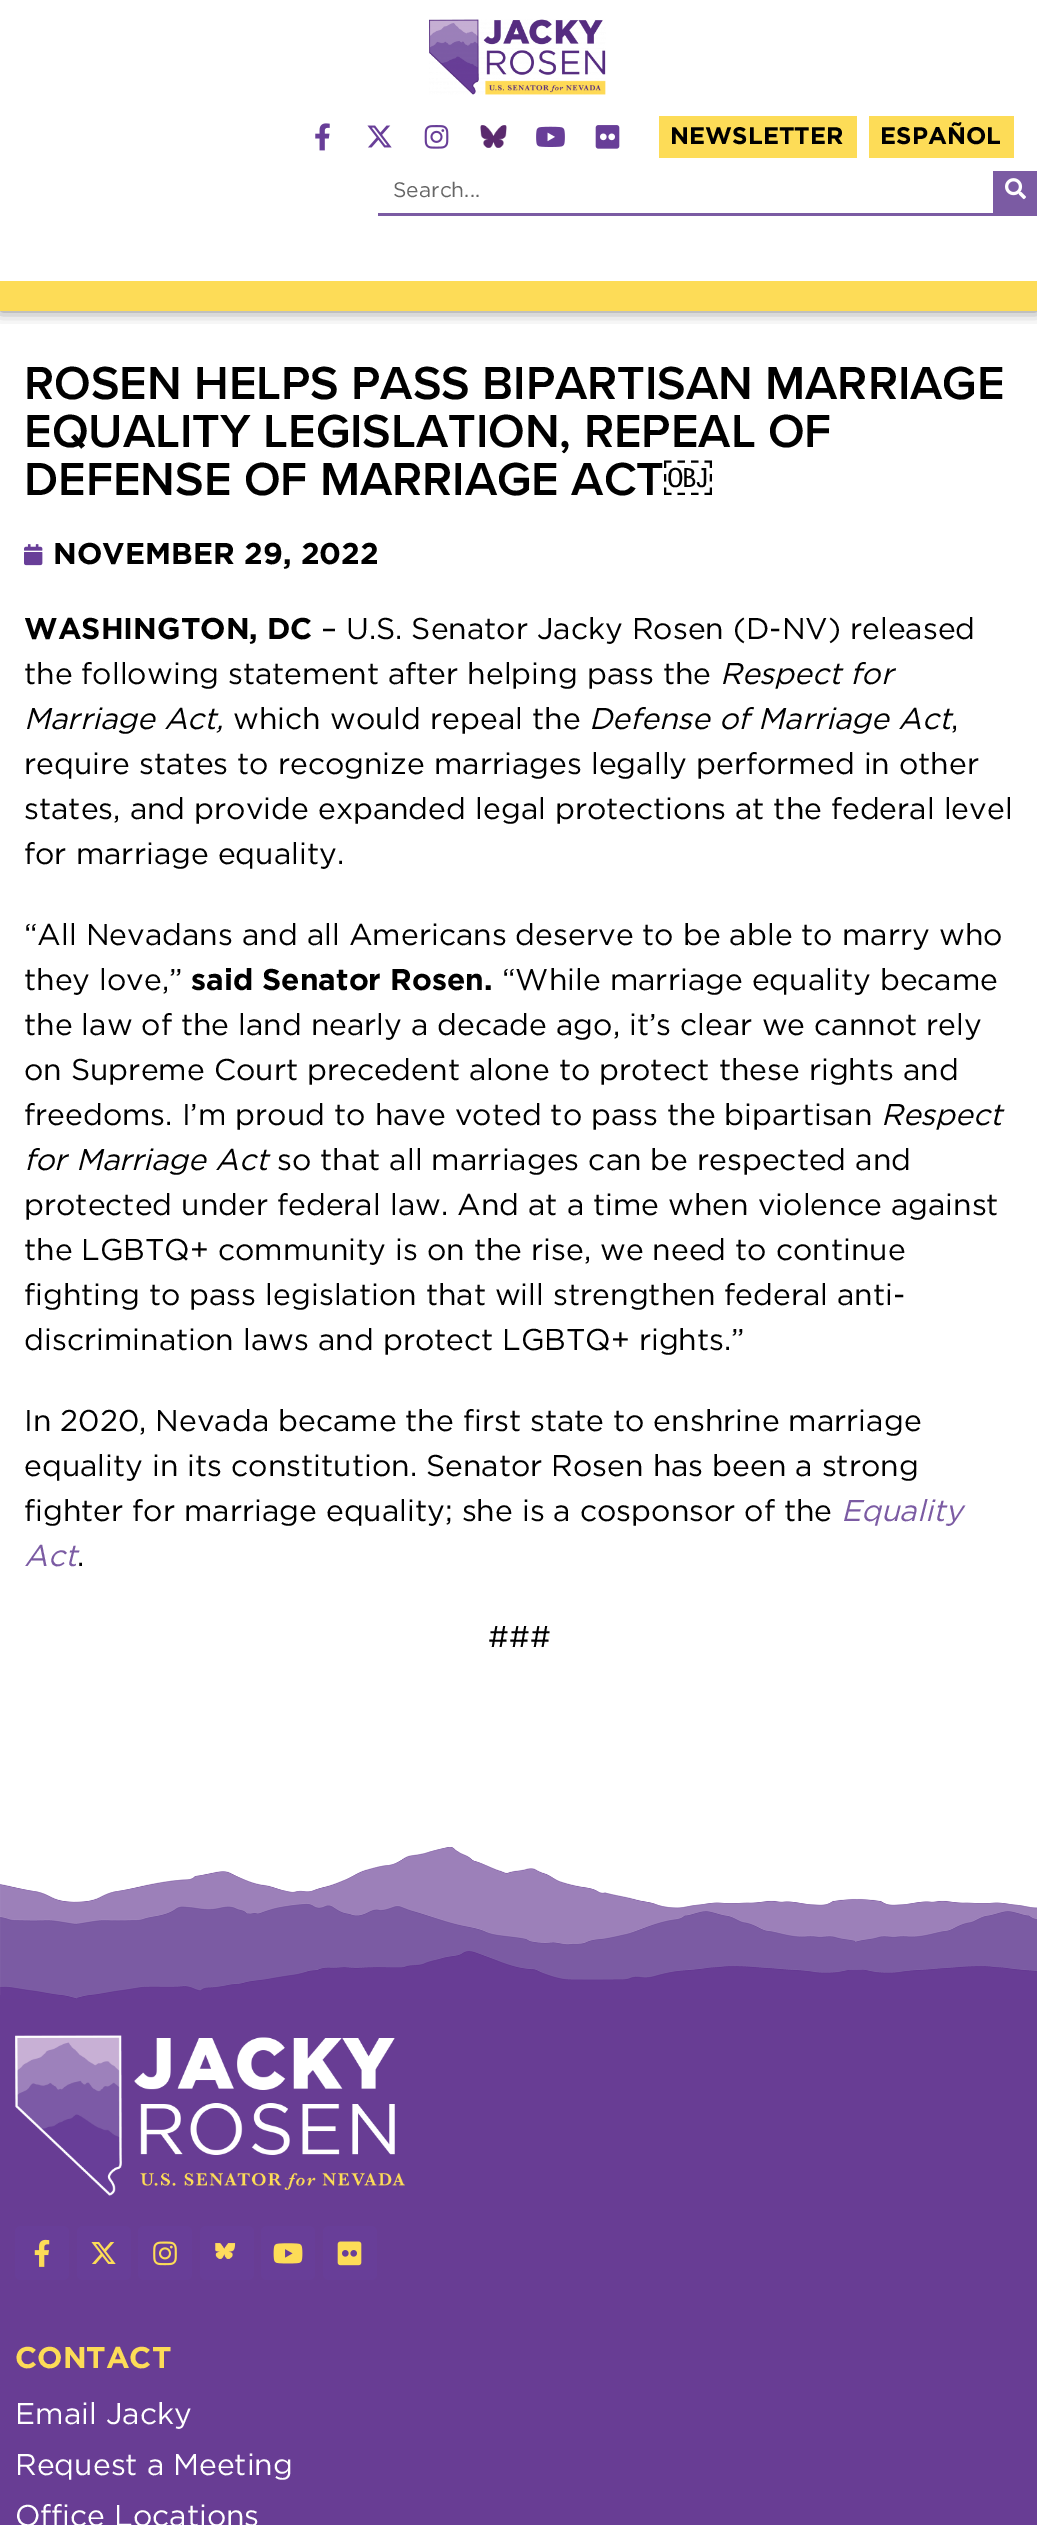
%!PS
<< /PageSize [1037 2525] /PageUsesTransparency true >> setpagedevice
/alpha { dup .setfillconstantalpha .setstrokeconstantalpha } def
/roundrect { 5 dict begin { /r /h /w /y /x } { exch def } forall
  x r add y moveto x w add y 2 copy h add r arct x w add y h add x 1 index r arct
  x y h add x y r arct x y 2 copy exch w add exch r arct closepath end } def
/shadow { 12 dict begin { /a /b /q /h /w /y /x } { exch def } forall gsave /was 0 def
  9 -2 -9 { dup b mul 4 div /e exch def 1 sub .425 mul 2.718 exch exp 1 add a .99 .min exch div /now exch def
    1 1 now sub 1 was sub div sub alpha /was now def
    w h .min e 2 mul add 0 gt { x e sub y e sub w e 2 mul add h e 2 mul add
      q e add b .6 mul add w h .min 2 div e add .min 0 .max roundrect fill } if } for grestore end } def
/picture { 5 dict begin { /h /w /y /x /name } { exch def } forall
  gsave x y translate w h scale
  w h 8 [w 0 0 h 0 0] name (r) file false 3 colorimage grestore end } def
0 .pushpdf14devicefilter
0 2525 translate 1 -1 scale
4 setmiterlimit
1 setgray
0 0 1037 2525 rectfill
gsave
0 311 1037 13 rectclip
0 setgray
0 0 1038 311 0 7.5 0.5 shadow
grestore
0.992 0.863 0.341 setrgbcolor
0 281 1037 30 rectfill
(img1.rgb) 429 19 177 76 picture
(img2.rgb) 315 123 15 28 picture
(img3.rgb) 367 125 25 23 picture
(img4.rgb) 424 125 25 24 picture
(img5.rgb) 480 125 27 23 picture
(img6.rgb) 536 126 29 21 picture
(img7.rgb) 595 125 25 24 picture
659 116 198 42 rectfill
/Gotham-Bold [24 0 0 -24 0 0] selectfont
0 setgray
670 144 moveto 0.1 0 (NEWSLETTER) ashow
0.992 0.863 0.341 setrgbcolor
869 116 145 42 rectfill
0 setgray
880 144 moveto 0.1 0 (ESPAÑOL) ashow
0.482 0.357 0.639 setrgbcolor
378 213 659 3 rectfill
/Gotham-Regular [21 0 0 -21 0 0] selectfont
0.4 setgray
393 197 moveto (Search...) show
0.482 0.357 0.639 setrgbcolor
993 171 44 42 rectfill
(img8.rgb) 1005 178 21 22 picture
/ProximaNova-SemiBold [48 0 0 -48 0 0] selectfont
0 setgray
24 399 moveto (ROSEN HELPS PASS BIPARTISAN MARRIAGE) show
24 447 moveto (EQUALITY LEGISLATION, REPEAL OF) show
24 495 moveto (DEFENSE OF MARRIAGE ACT) show
/LiberationSans-Bold [48 0 0 -48 0 0] selectfont
664 495 moveto (￼) show
(img9.rgb) 24 544 19 22 picture
/Gotham-Bold [30 0 0 -30 0 0] selectfont
53 564 moveto 0.1 0 (NOVEMBER 29, 2022) ashow
24 639 moveto (WASHINGTON, DC) show
/Gotham-Regular [30 0 0 -30 0 0] selectfont
321 639 moveto (– U.S. Senator Jacky Rosen \(D-NV\) released) show
24 684 moveto (the following statement after helping pass the) show
/Gotham-Italic [30 0 0 -30 0 0] selectfont
720 684 moveto (Respect for) show
24 729 moveto (Marriage Act,) show
/Gotham-Regular [30 0 0 -30 0 0] selectfont
233 729 moveto (which would repeal the) show
/Gotham-Italic [30 0 0 -30 0 0] selectfont
589 729 moveto (Defense of Marriage Act) show
/Gotham-Regular [30 0 0 -30 0 0] selectfont
951 729 moveto (,) show
24 774 moveto (require states to recognize marriages legally performed in other) show
24 819 moveto (states, and provide expanded legal protections at the federal level) show
24 864 moveto (for marriage equality.) show
24 945 moveto (“All Nevadans and all Americans deserve to be able to marry who) show
24 990 moveto (they love,”) show
/Gotham-Bold [30 0 0 -30 0 0] selectfont
191 990 moveto (said Senator Rosen.) show
/Gotham-Regular [30 0 0 -30 0 0] selectfont
502 990 moveto (“While marriage equality became) show
24 1035 moveto (the law of the land nearly a decade ago, it’s clear we cannot rely) show
24 1080 moveto (on Supreme Court precedent alone to protect these rights and) show
24 1125 moveto (freedoms. I’m proud to have voted to pass the bipartisan) show
/Gotham-Italic [30 0 0 -30 0 0] selectfont
881 1125 moveto (Respect) show
24 1170 moveto (for Marriage Act) show
/Gotham-Regular [30 0 0 -30 0 0] selectfont
277 1170 moveto (so that all marriages can be respected and) show
24 1215 moveto (protected under federal law. And at a time when violence against) show
24 1260 moveto (the LGBTQ+ community is on the rise, we need to continue) show
24 1305 moveto (fighting to pass legislation that will strengthen federal anti-) show
24 1350 moveto (discrimination laws and protect LGBTQ+ rights.”) show
24 1431 moveto (In 2020, Nevada became the first state to enshrine marriage) show
24 1476 moveto (equality in its constitution. Senator Rosen has been a strong) show
24 1521 moveto (fighter for marriage equality; she is a cosponsor of the) show
/Gotham-Italic [30 0 0 -30 0 0] selectfont
0.482 0.357 0.639 setrgbcolor
841 1521 moveto (Equality) show
24 1566 moveto (Act) show
/Gotham-Regular [30 0 0 -30 0 0] selectfont
0 setgray
77 1566 moveto (.) show
488 1647 moveto (###) show
0.408 0.239 0.58 setrgbcolor
0 1994 1037 531 rectfill
(img10.rgb) 0 1841 1037 158 picture
(img11.rgb) 15 2035 390 161 picture
0.408 0.243 0.596 setrgbcolor
15 2226 54 54 6 roundrect fill
(img12.rgb) 34 2239 16 28 picture
77 2226 54 54 6 roundrect fill
(img13.rgb) 91 2242 25 22 picture
138 2226 54 54 6 roundrect fill
(img14.rgb) 153 2241 24 25 picture
200 2226 54 54 6 roundrect fill
(img15.rgb) 215 2243 21 16 picture
261 2226 54 54 6 roundrect fill
(img16.rgb) 273 2243 30 21 picture
323 2226 54 54 6 roundrect fill
(img17.rgb) 337 2241 25 25 picture
/Gotham-Bold [30 0 0 -30 0 0] selectfont
0.992 0.863 0.341 setrgbcolor
15 2368 moveto (CONTACT) show
/Gotham-Regular [30 0 0 -30 0 0] selectfont
1 setgray
15 2424 moveto (Email Jacky) show
15 2475 moveto (Request a Meeting) show
15 2526 moveto (Office Locations) show
.poppdf14devicefilter showpage
